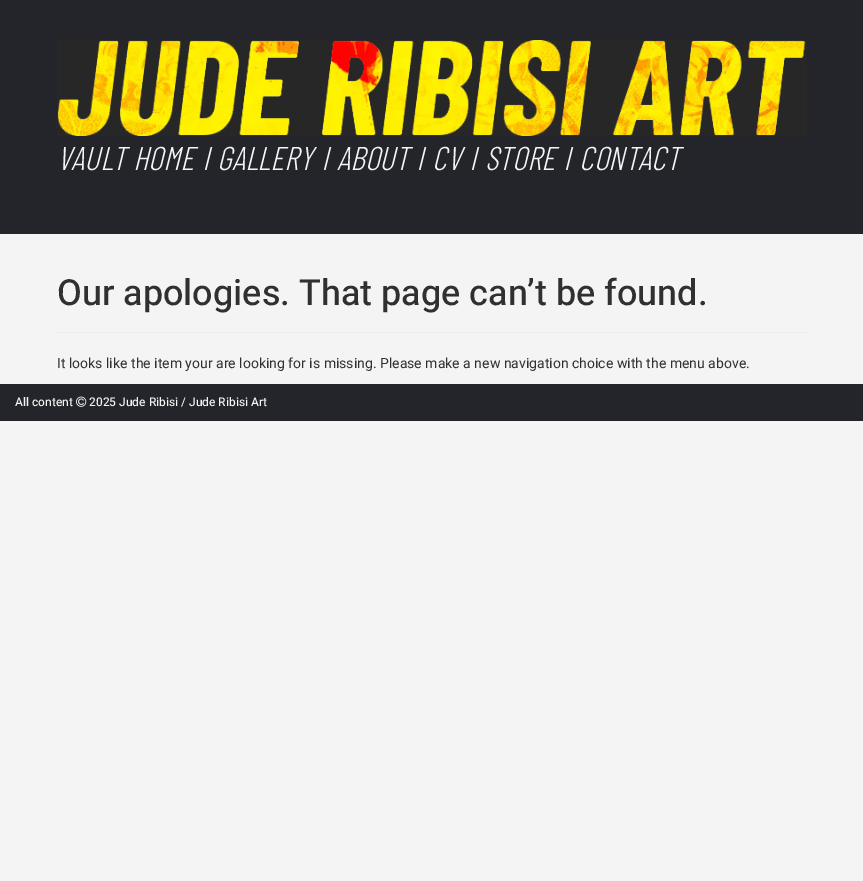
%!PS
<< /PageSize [863 881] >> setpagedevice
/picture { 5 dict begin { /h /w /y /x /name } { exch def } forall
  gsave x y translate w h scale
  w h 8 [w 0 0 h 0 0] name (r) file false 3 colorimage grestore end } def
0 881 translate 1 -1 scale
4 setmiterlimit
0.957 setgray
0 0 863 881 rectfill
0.141 0.145 0.169 setrgbcolor
0 0 863 234 rectfill
(img1.rgb) 57 40 749 96 picture
(img2.rgb) 57 40 750 96 picture
/BarlowCondensed-LightItalic [33 0 0 -33 0 0] selectfont
0.957 setgray
57 170 moveto (VAULT HOME) show
/BarlowCondensed-Light [33 0 0 -33 0 0] selectfont
204 170 moveto (/) show
/BarlowCondensed-LightItalic [33 0 0 -33 0 0] selectfont
217 170 moveto (GALLERY) show
/BarlowCondensed-Light [33 0 0 -33 0 0] selectfont
323 170 moveto (/) show
/BarlowCondensed-LightItalic [33 0 0 -33 0 0] selectfont
337 170 moveto (ABOUT) show
/BarlowCondensed-Light [33 0 0 -33 0 0] selectfont
418 170 moveto (/) show
/BarlowCondensed-LightItalic [33 0 0 -33 0 0] selectfont
432 170 moveto (CV) show
/BarlowCondensed-Light [33 0 0 -33 0 0] selectfont
471 170 moveto (/) show
/BarlowCondensed-LightItalic [33 0 0 -33 0 0] selectfont
485 170 moveto (STORE) show
/BarlowCondensed-Light [33 0 0 -33 0 0] selectfont
565 170 moveto (/) show
/BarlowCondensed-LightItalic [33 0 0 -33 0 0] selectfont
579 170 moveto (CONTACT) show
0.933 setgray
57 332 750 1 rectfill
/Heebo-Medium [36 0 0 -36 0 0] selectfont
0.188 setgray
57 305 moveto (Our apologies. That page can’t be found.) show
/Heebo-Regular [14 0 0 -14 0 0] selectfont
57 368 moveto (It looks like the item your are looking for is missing. Please make a new navigation choice with the menu above.) show
0.141 0.145 0.169 setrgbcolor
0 384 863 37 rectfill
/Heebo-Medium [12 0 0 -12 0 0] selectfont
0.957 setgray
15 406 moveto (All content) show
(img3.rgb) 76 396 11 11 picture
89 406 moveto (2025 Jude Ribisi / Jude Ribisi Art) show
showpage
